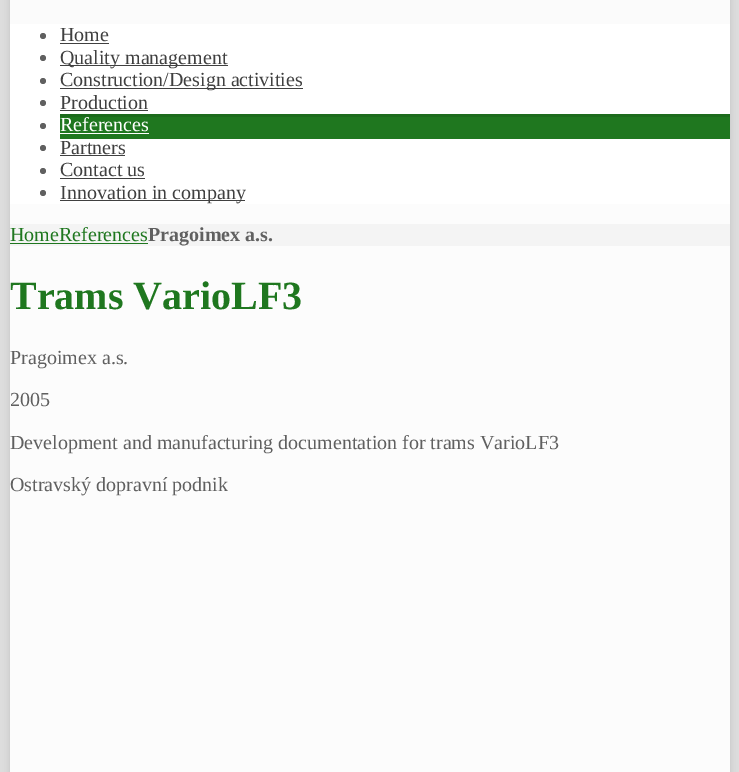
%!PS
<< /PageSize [739 772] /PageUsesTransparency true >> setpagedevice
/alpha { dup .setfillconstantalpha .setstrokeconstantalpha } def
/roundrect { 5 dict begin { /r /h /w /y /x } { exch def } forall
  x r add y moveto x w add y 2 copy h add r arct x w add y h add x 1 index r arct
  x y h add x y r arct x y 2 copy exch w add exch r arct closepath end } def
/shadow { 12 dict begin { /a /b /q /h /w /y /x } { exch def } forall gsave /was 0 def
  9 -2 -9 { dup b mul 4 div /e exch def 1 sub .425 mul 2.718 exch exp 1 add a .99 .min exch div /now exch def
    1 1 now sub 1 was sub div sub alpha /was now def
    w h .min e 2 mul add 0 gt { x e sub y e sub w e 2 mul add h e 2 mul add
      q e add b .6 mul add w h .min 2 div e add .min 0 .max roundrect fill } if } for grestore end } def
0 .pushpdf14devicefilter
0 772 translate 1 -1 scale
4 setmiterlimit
0.871 setgray
0 0 739 772 rectfill
0.753 setgray
10 -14 720 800 0 4.5 1 shadow
0.988 setgray
10 204 720 568 rectfill
gsave newpath 10 0 moveto 730 0 lineto 730 24 lineto 10 24 lineto closepath clip newpath
<< /ShadingType 2 /ColorSpace /DeviceRGB /Coords [370 -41 370 204] /Extend [true true] /Function << /FunctionType 2 /Domain [0 1] /C0 [0.98 0.98 0.98] /C1 [1 1 1] /N 1 >> >> shfill grestore
1 setgray
10 24 720 180 rectfill
0.376 setgray
newpath 43 36 3 0 360 arc closepath fill
/LiberationSerif-Regular [20 0 0 -20 0 0] selectfont
0.251 setgray
60 41 moveto (Home) show
60 43 49 1 rectfill
0.376 setgray
newpath 43 58 3 0 360 arc closepath fill
0.251 setgray
60 65 168 1 rectfill
60 64 moveto (Quality management) show
0.376 setgray
newpath 43 81 3 0 360 arc closepath fill
0.251 setgray
60 88 243 1 rectfill
60 86 moveto (Construction/Design activities) show
0.376 setgray
newpath 43 103 3 0 360 arc closepath fill
0.251 setgray
60 109 moveto (Production) show
60 110 88 1 rectfill
0.122 0.467 0.122 setrgbcolor
60 117 670 22 rectfill
0.11 0.42 0.11 setrgbcolor
60 114 670 3 rectfill
0.376 setgray
newpath 43 126 3 0 360 arc closepath fill
1 setgray
60 131 moveto (References) show
60 133 89 1 rectfill
0.376 setgray
newpath 43 148 3 0 360 arc closepath fill
0.251 setgray
60 154 moveto (Partners) show
60 155 65 1 rectfill
0.376 setgray
newpath 43 171 3 0 360 arc closepath fill
0.251 setgray
60 176 moveto (Contact us) show
60 178 85 1 rectfill
0.376 setgray
newpath 43 193 3 0 360 arc closepath fill
0.251 setgray
60 200 185 1 rectfill
60 199 moveto (Innovation in company) show
0.957 setgray
10 224 720 22 rectfill
0.122 0.467 0.122 setrgbcolor
10 241 moveto (HomeReferences) show
10 243 138 1 rectfill
/LiberationSerif-Bold [20 0 0 -20 0 0] selectfont
0.376 setgray
148 241 moveto (Pragoimex a.s.) show
/LiberationSerif-Bold [40 0 0 -40 0 0] selectfont
0.122 0.467 0.122 setrgbcolor
10 309 moveto (Trams VarioLF3) show
/LiberationSerif-Regular [20 0 0 -20 0 0] selectfont
0.376 setgray
10 364 moveto (Pragoimex a.s.) show
10 406 moveto (2005) show
10 449 moveto (Development and manufacturing documentation for trams VarioLF3) show
10 491 moveto (Ostravský dopravní podnik) show
.poppdf14devicefilter showpage
